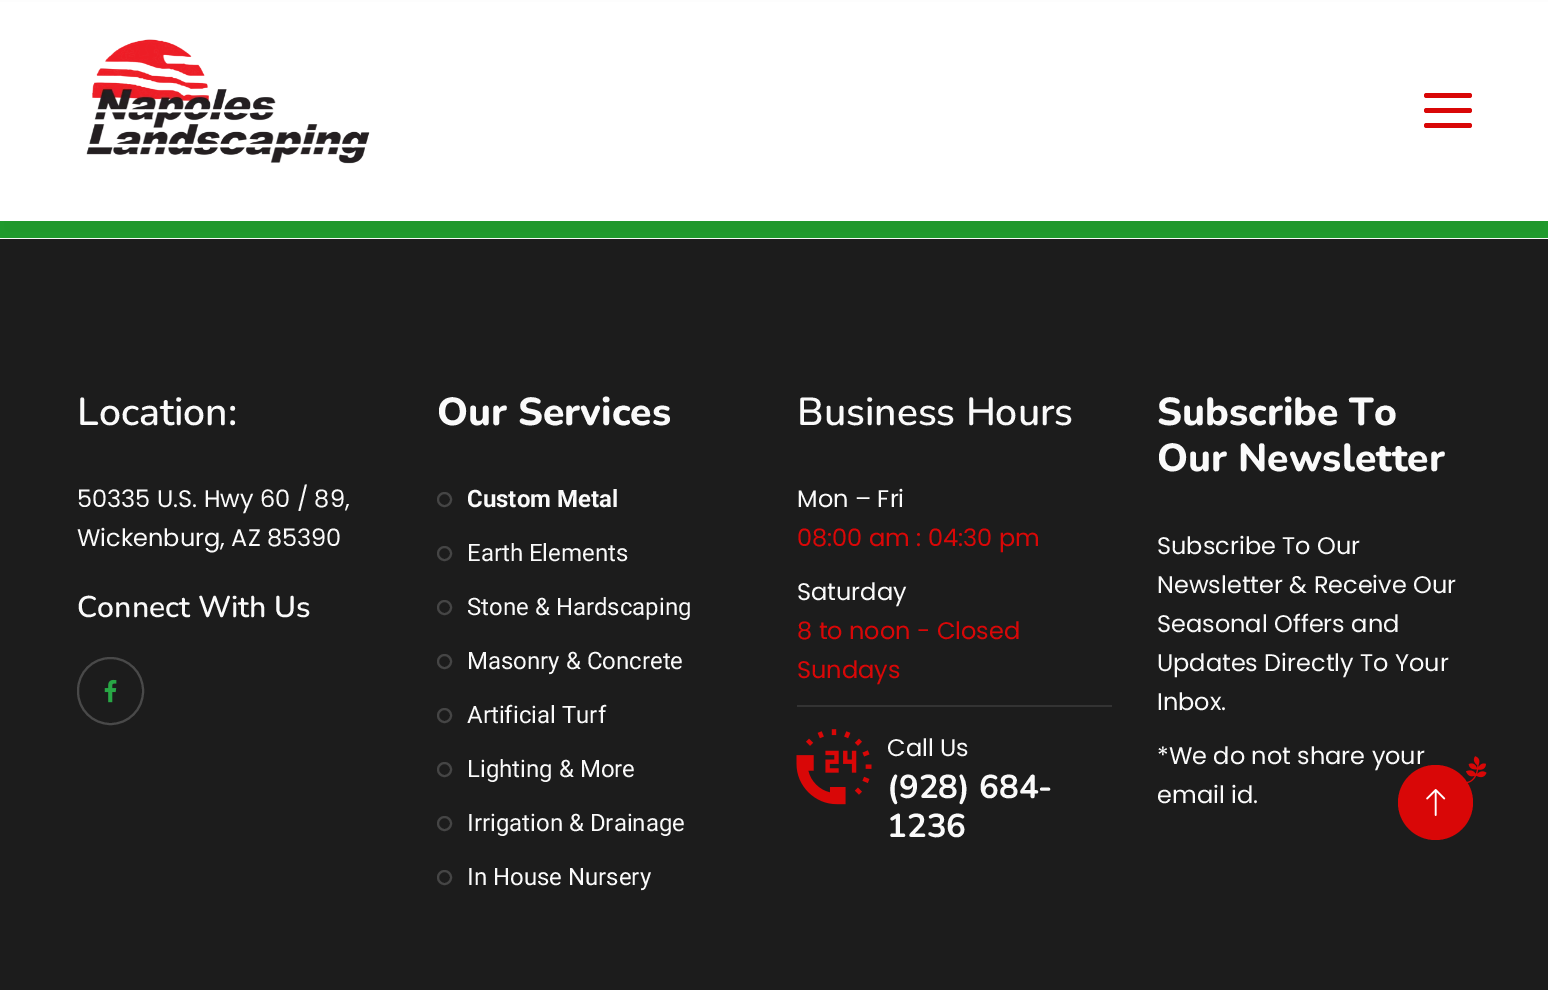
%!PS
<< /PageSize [1548 990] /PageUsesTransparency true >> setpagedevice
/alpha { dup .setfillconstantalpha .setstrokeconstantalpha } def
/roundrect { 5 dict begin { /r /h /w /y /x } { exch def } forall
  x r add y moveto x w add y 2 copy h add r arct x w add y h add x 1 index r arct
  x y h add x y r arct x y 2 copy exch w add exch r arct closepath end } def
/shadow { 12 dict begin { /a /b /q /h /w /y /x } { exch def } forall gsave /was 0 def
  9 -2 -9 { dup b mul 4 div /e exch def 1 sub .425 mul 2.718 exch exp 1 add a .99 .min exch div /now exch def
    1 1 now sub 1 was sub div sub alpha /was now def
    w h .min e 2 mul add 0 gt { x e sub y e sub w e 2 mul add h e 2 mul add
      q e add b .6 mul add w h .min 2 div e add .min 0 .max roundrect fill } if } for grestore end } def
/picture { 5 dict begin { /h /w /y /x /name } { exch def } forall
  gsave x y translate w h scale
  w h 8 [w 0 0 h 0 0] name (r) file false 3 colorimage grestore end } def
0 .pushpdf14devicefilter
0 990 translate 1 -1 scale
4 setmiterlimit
1 setgray
0 0 1548 990 rectfill
0.125 0.624 0.18 setrgbcolor
0 221 1548 17 rectfill
0.11 setgray
0 239 1548 751 rectfill
0 setgray
0 15 1548 221 0 16 0.05 shadow
1 setgray
0 2 1548 219 rectfill
(img1.rgb) 86 39 284 125 picture
0.851 0.027 0.027 setrgbcolor
1424 93 48 5 2.5 roundrect fill
1424 108 48 5 2.5 roundrect fill
1424 123 48 5 2.5 roundrect fill
/Nunito-SemiBold [39 0 0 -39 0 0] selectfont
0.98 setgray
77 425 moveto (Location:) show
/Poppins-Regular [24 0 0 -24 0 0] selectfont
77 507 moveto (50335 U.S. Hwy 60 / 89,) show
77 546 moveto (Wickenburg, AZ 85390) show
/Nunito-SemiBold [30 0 0 -30 0 0] selectfont
77 617 moveto (Connect With Us) show
0.286 setgray
2 setlinewidth
78 658 65 66 32.5 roundrect stroke
(img2.rgb) 104 679 13 24 picture
/Nunito-ExtraBold [39 0 0 -39 0 0] selectfont
0.98 setgray
437 425 moveto (Our Services) show
0.271 setgray
newpath 444.5 499.5 6.5 0 360 arc closepath stroke
/Roboto-Bold [24 0 0 -24 0 0] selectfont
0.98 setgray
467 507 moveto (Custom Metal) show
0.271 setgray
newpath 444.5 553.5 6.5 0 360 arc closepath stroke
/Roboto-Regular [24 0 0 -24 0 0] selectfont
0.98 setgray
467 561 moveto (Earth Elements) show
0.271 setgray
newpath 444.5 607.5 6.5 0 360 arc closepath stroke
0.98 setgray
467 615 moveto (Stone & Hardscaping) show
0.271 setgray
newpath 444.5 661.5 6.5 0 360 arc closepath stroke
0.98 setgray
467 669 moveto (Masonry & Concrete) show
0.271 setgray
newpath 444.5 715.5 6.5 0 360 arc closepath stroke
0.98 setgray
467 723 moveto (Artificial Turf) show
0.271 setgray
newpath 444.5 769.5 6.5 0 360 arc closepath stroke
0.98 setgray
467 777 moveto (Lighting & More) show
0.271 setgray
newpath 444.5 823.5 6.5 0 360 arc closepath stroke
0.98 setgray
467 831 moveto (Irrigation & Drainage) show
0.271 setgray
newpath 444.5 877.5 6.5 0 360 arc closepath stroke
0.98 setgray
467 885 moveto (In House Nursery) show
/Nunito-SemiBold [39 0 0 -39 0 0] selectfont
797 425 moveto (Business Hours) show
/Poppins-Regular [24 0 0 -24 0 0] selectfont
797 507 moveto (Mon – Fri) show
0.851 0.027 0.027 setrgbcolor
797 546 moveto (08:00 am : 04:30 pm) show
0.98 setgray
797 600 moveto (Saturday) show
0.851 0.027 0.027 setrgbcolor
797 639 moveto (8 to noon - Closed) show
797 678 moveto (Sundays) show
0.2 setgray
797 705 315 2 rectfill
(img3.rgb) 796 729 76 76 picture
0.98 setgray
887 756 moveto (Call Us) show
/Nunito-Bold [33 0 0 -33 0 0] selectfont
887 798 moveto (\(928\) 684-) show
887 837 moveto (1236) show
/Nunito-ExtraBold [39 0 0 -39 0 0] selectfont
1157 425 moveto (Subscribe To) show
1157 471 moveto (Our Newsletter) show
/Poppins-Regular [24 0 0 -24 0 0] selectfont
1157 554 moveto (Subscribe To Our) show
1157 593 moveto (Newsletter & Receive Our) show
1157 632 moveto (Seasonal Offers and) show
1157 671 moveto (Updates Directly To Your) show
1157 710 moveto (Inbox.) show
1157 764 moveto (*We do not share your) show
1157 803 moveto (email id.) show
0.851 0.027 0.027 setrgbcolor
newpath 1435.5 802.5 37.5 0 360 arc closepath fill
(img4.rgb) 1466 756 21 27 picture
(img5.rgb) 1426 789 20 27 picture
.poppdf14devicefilter showpage
